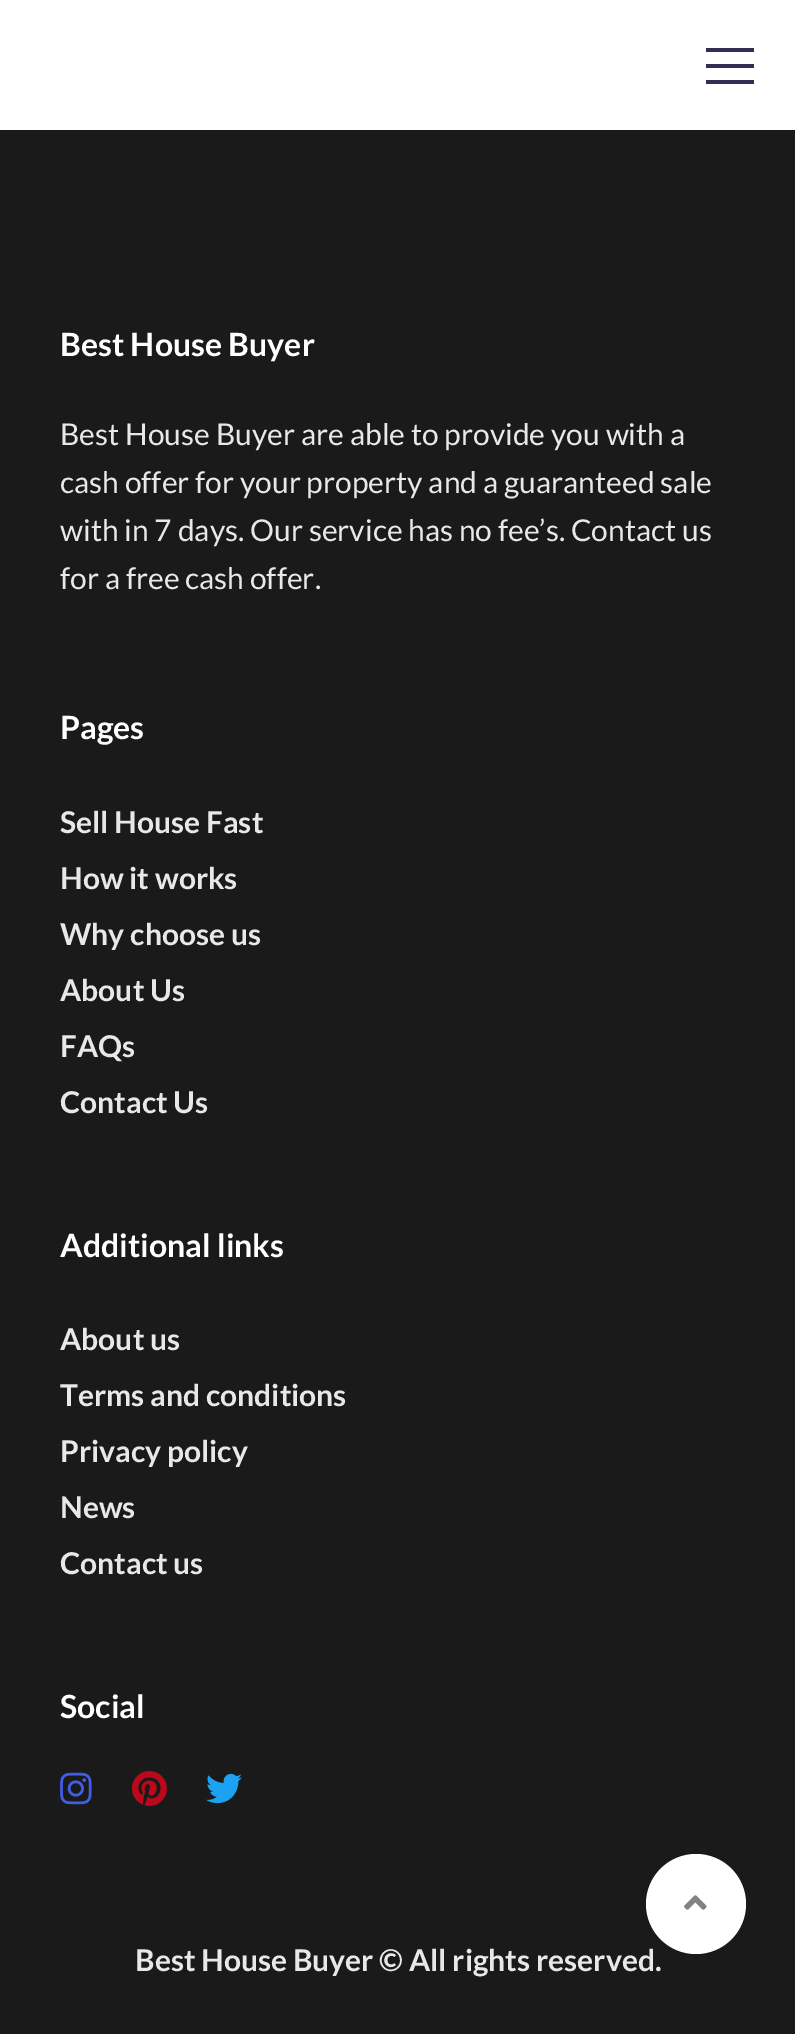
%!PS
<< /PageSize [795 2034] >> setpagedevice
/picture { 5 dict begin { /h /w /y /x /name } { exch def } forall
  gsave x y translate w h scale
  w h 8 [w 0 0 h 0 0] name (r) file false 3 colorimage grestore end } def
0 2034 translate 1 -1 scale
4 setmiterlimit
0.102 setgray
0 0 795 2034 rectfill
1 setgray
0 0 795 130 rectfill
0.196 0.176 0.325 setrgbcolor
706 80 48 4 rectfill
706 48 48 4 rectfill
706 64 48 4 rectfill
/Lato-Bold [32 0 0 -32 0 0] selectfont
1 setgray
60 356 moveto (Best House Buyer) show
/Lato-Regular [30 0 0 -30 0 0] selectfont
0.91 setgray
60 445 moveto (Best House Buyer are able to provide you with a) show
60 493 moveto (cash offer for your property and a guaranteed sale) show
60 541 moveto (with in 7 days. Our service has no fee’s. Contact us) show
60 589 moveto (for a free cash offer.) show
/Lato-Bold [32 0 0 -32 0 0] selectfont
1 setgray
60 739 moveto (Pages) show
/Lato-Bold [30 0 0 -30 0 0] selectfont
0.91 setgray
60 833 moveto (Sell House Fast) show
60 889 moveto (How it works) show
60 945 moveto (Why choose us) show
60 1001 moveto (About Us) show
60 1057 moveto (FAQs) show
60 1113 moveto (Contact Us) show
/Lato-Bold [32 0 0 -32 0 0] selectfont
1 setgray
60 1257 moveto (Additional links) show
/Lato-Bold [30 0 0 -30 0 0] selectfont
0.91 setgray
60 1350 moveto (About us) show
60 1406 moveto (Terms and conditions) show
60 1462 moveto (Privacy policy) show
60 1518 moveto (News) show
60 1574 moveto (Contact us) show
/Lato-Bold [32 0 0 -32 0 0] selectfont
1 setgray
60 1718 moveto (Social) show
(img1.rgb) 60 1772 32 33 picture
(img2.rgb) 132 1771 35 35 picture
(img3.rgb) 206 1773 36 31 picture
/Lato-Bold [30 0 0 -30 0 0] selectfont
0.91 setgray
135 1971 moveto (Best House Buyer © All rights reserved.) show
1 setgray
newpath 696 1904 50 0 360 arc closepath fill
(img4.rgb) 684 1895 23 15 picture
showpage
